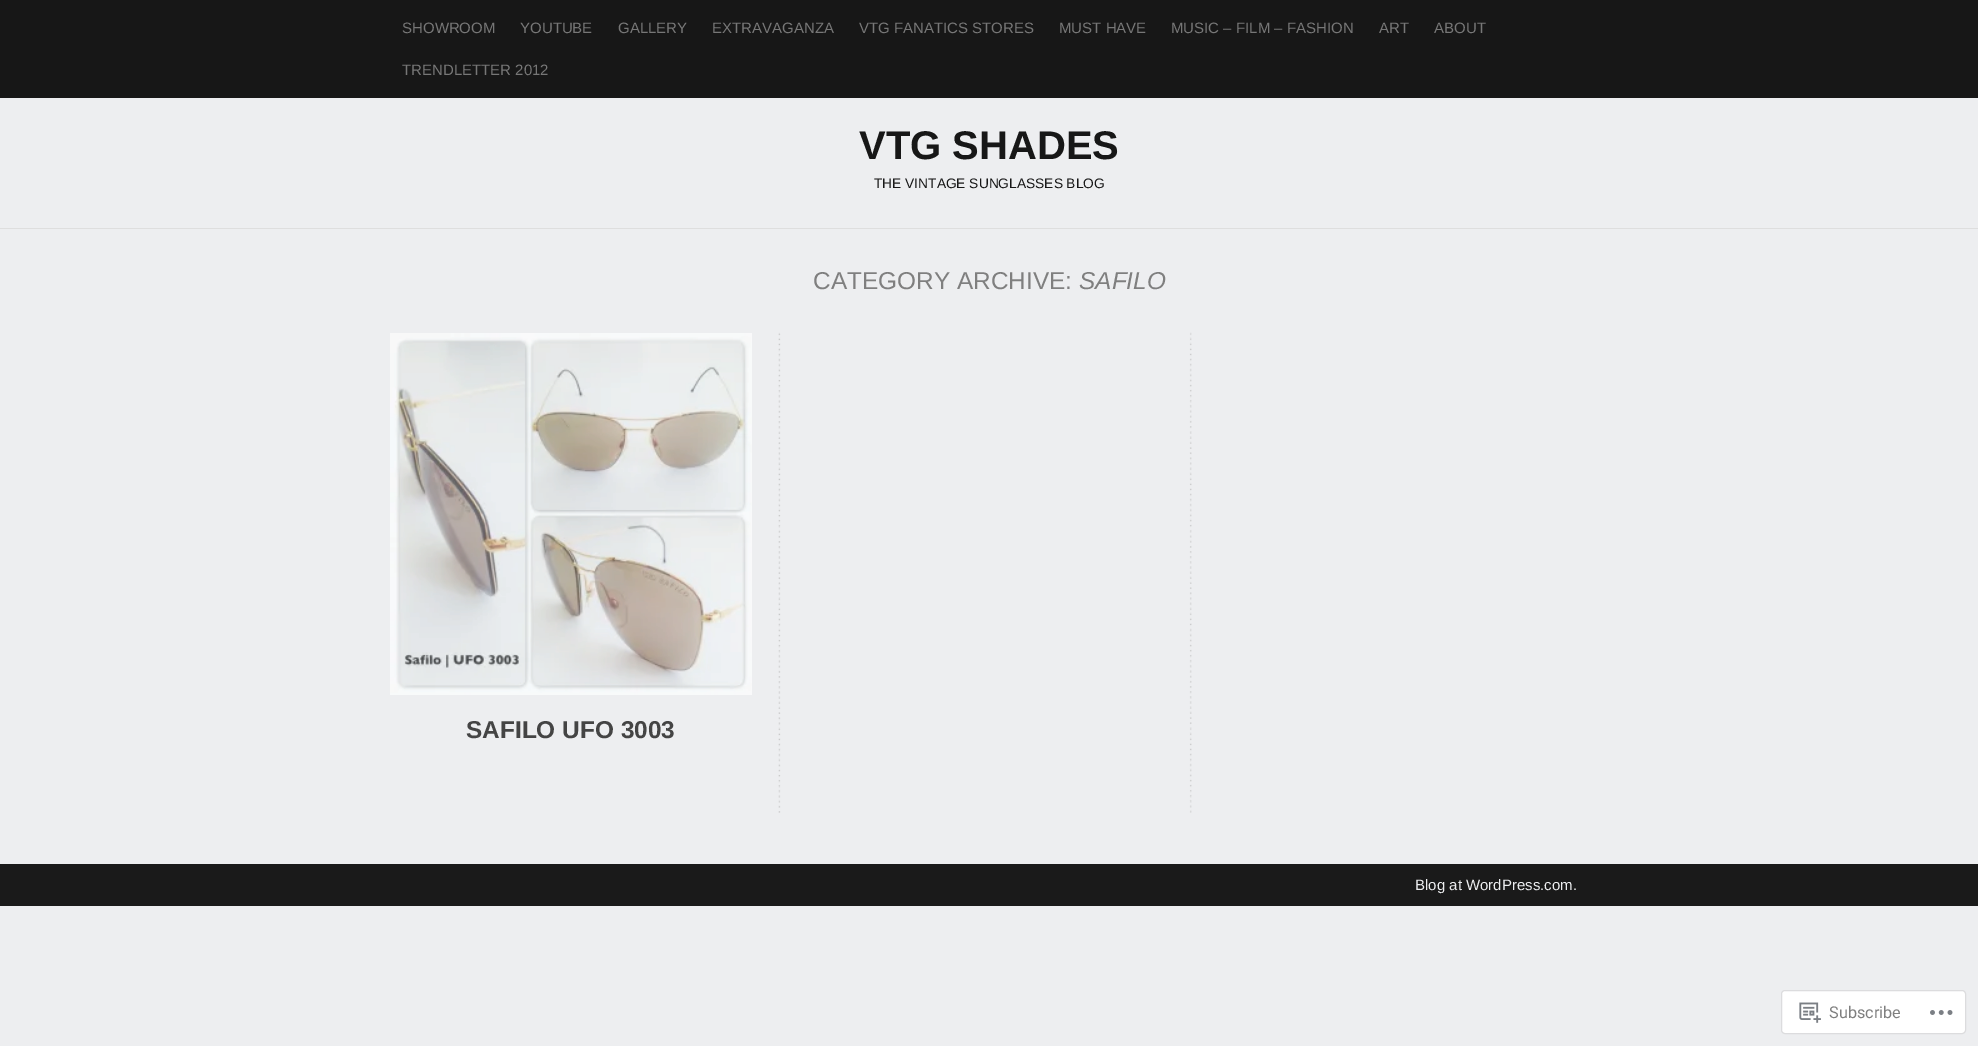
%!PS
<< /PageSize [1978 1046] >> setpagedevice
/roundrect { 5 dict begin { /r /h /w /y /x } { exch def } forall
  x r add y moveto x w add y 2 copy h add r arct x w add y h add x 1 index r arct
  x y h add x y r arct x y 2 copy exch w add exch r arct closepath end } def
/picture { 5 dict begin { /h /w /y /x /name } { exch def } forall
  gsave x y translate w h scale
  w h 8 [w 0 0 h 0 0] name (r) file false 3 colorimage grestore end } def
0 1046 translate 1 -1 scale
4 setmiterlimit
0.929 0.933 0.941 setrgbcolor
0 0 1978 1046 rectfill
0.09 setgray
0 0 1978 98 rectfill
/LiberationSans-Regular [15 0 0 -15 0 0] selectfont
0.467 setgray
402 33 moveto (SHOWROOM) show
520 33 moveto (YOUTUBE) show
618 33 moveto (GALLERY) show
712 33 moveto (EXTRAVAGANZA) show
859 33 moveto (VTG FANATICS STORES) show
1059 33 moveto (MUST HAVE) show
1171 33 moveto (MUSIC – FILM – FASHION) show
1379 33 moveto (ART) show
1434 33 moveto (ABOUT) show
402 75 moveto (TRENDLETTER 2012) show
0.871 setgray
0 228 1978 1 rectfill
/LiberationSans-Bold [40 0 0 -40 0 0] selectfont
0.09 setgray
859 159 moveto (VTG SHADES) show
/LiberationSans-Regular [13.75 0 0 -13.75 0 0] selectfont
874 188 moveto (THE VINTAGE SUNGLASSES BLOG) show
/LiberationSans-Regular [24.4 0 0 -24.4 0 0] selectfont
0.498 setgray
813 289 moveto (CATEGORY ARCHIVE:) show
/LiberationSans-Italic [24.4 0 0 -24.4 0 0] selectfont
1079 289 moveto (SAFILO) show
(img1.rgb) 778 332 414 481 picture
(img2.rgb) 390 333 362 362 picture
/LiberationSans-Bold [24.4 0 0 -24.4 0 0] selectfont
0.267 setgray
466 738 moveto (SAFILO UFO 3003) show
0.102 setgray
0 864 1978 42 rectfill
/LiberationSans-Regular [15 0 0 -15 0 0] selectfont
0.929 0.933 0.941 setrgbcolor
1415 890 moveto (Blog at WordPress.com.) show
1 setgray
1781.5 990.5 184 43 3.5 roundrect gsave fill grestore
0.863 0.863 0.871 setrgbcolor
stroke
(img3.rgb) 1799 1002 22 21 picture
/Roboto-Regular [16.25 0 0 -16.25 0 0] selectfont
0.498 setgray
1829 1018 moveto (Subscribe) show
(img4.rgb) 1930 1010 23 5 picture
showpage
